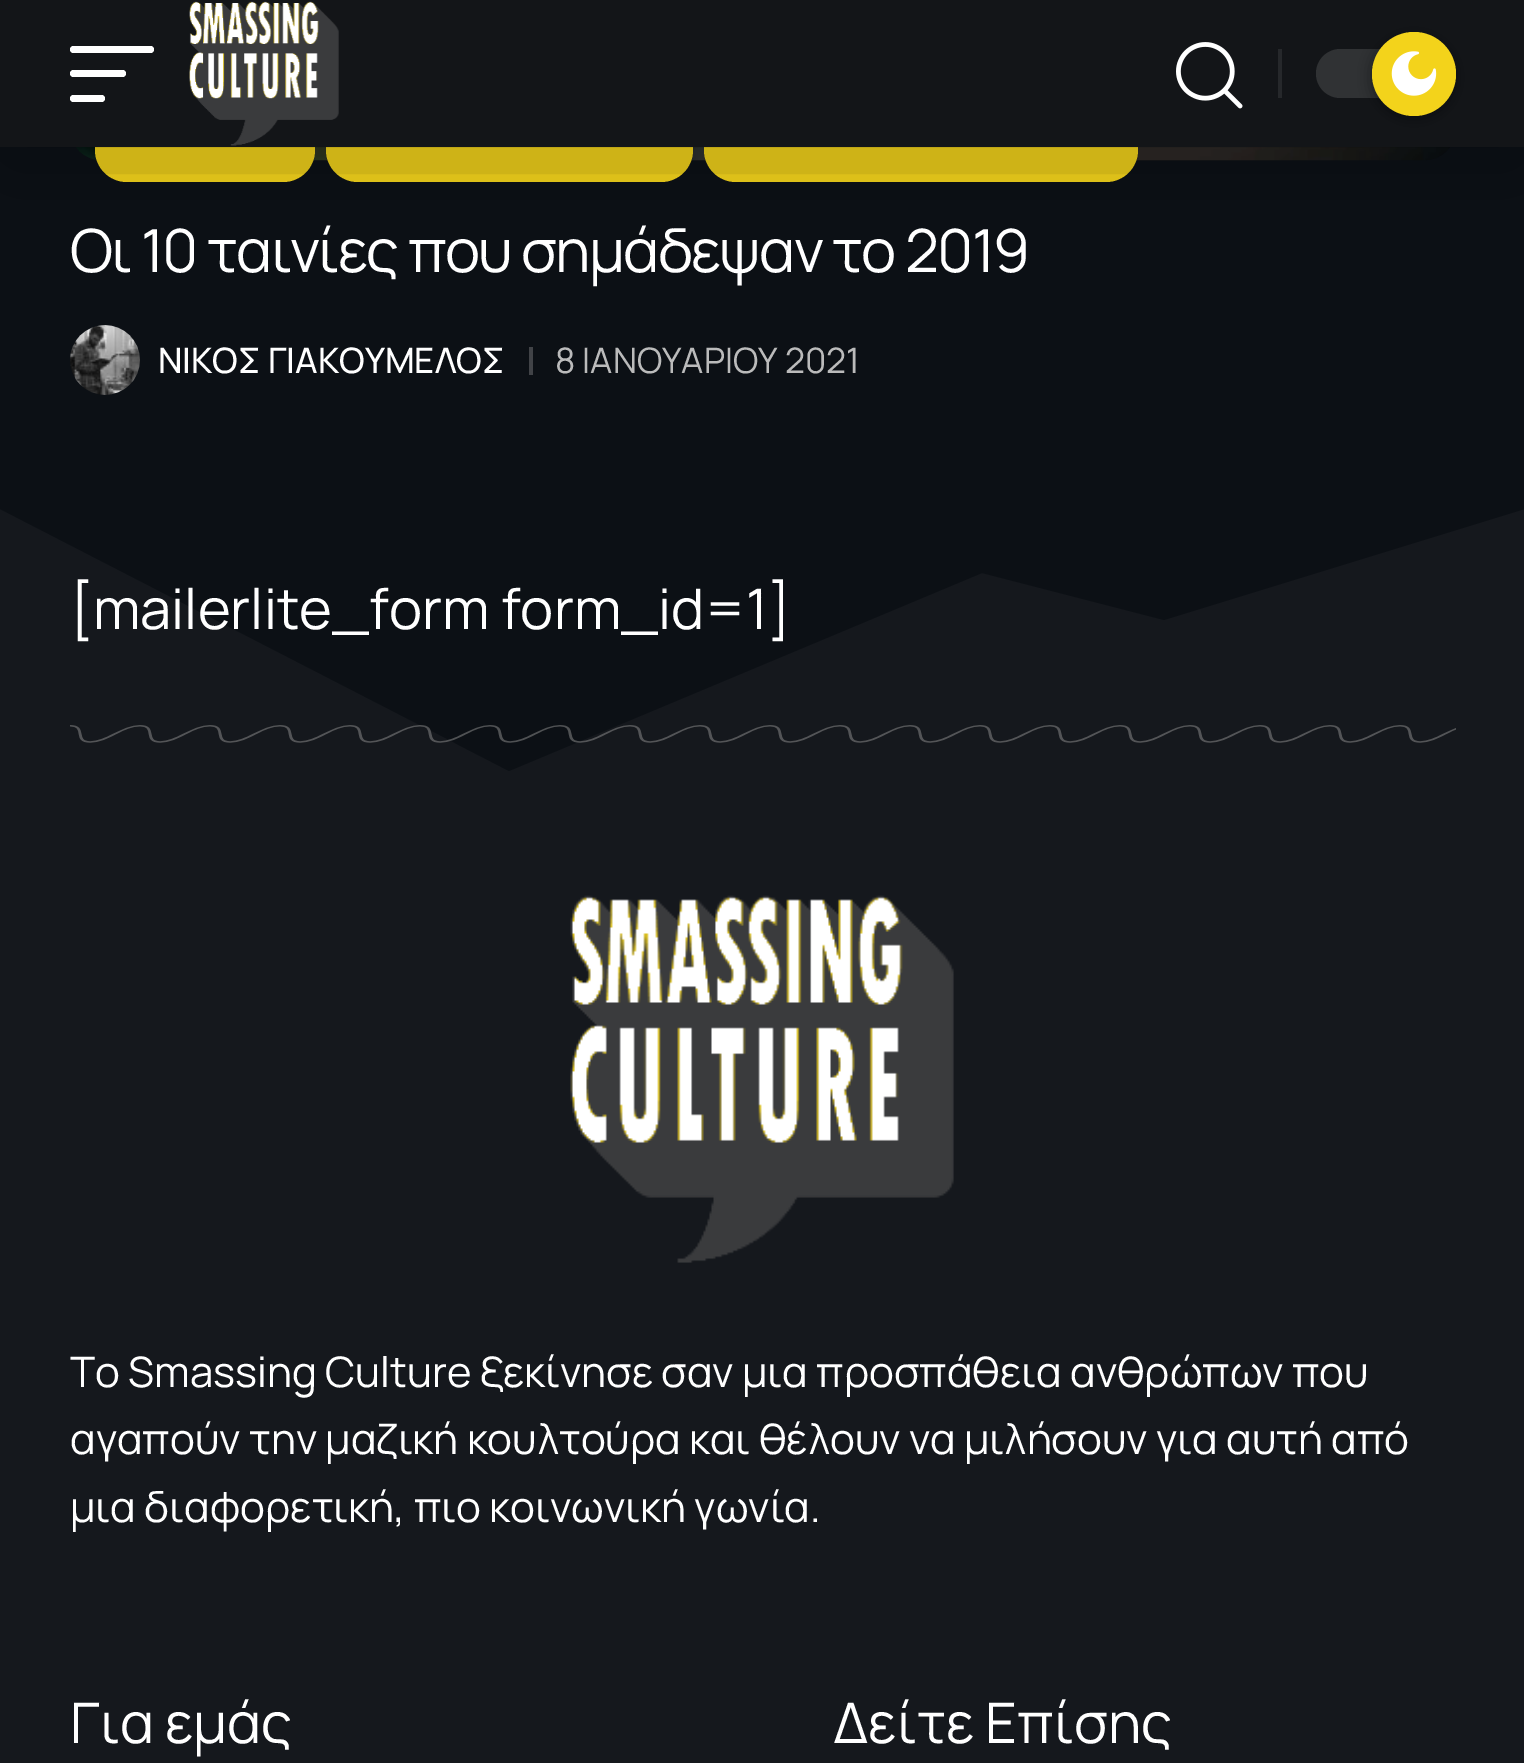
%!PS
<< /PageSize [1524 1763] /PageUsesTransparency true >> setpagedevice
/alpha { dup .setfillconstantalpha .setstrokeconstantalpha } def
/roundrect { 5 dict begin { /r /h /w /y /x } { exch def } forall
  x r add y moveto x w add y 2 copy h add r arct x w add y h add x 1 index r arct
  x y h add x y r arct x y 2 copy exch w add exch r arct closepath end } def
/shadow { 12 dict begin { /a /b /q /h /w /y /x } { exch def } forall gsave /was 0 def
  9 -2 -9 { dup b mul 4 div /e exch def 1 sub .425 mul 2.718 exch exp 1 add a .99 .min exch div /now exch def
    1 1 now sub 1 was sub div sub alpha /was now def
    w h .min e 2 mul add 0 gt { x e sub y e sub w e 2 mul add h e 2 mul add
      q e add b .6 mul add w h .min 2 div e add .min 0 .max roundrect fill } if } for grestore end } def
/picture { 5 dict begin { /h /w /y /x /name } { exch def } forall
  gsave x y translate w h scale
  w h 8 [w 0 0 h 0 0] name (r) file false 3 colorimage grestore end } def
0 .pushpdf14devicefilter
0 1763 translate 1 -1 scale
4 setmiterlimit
0.047 0.063 0.082 setrgbcolor
0 0 1524 1763 rectfill
(img4.rgb) 76 147 1374 14 picture
0.953 0.827 0.106 setrgbcolor
95 112 220 70 32 roundrect fill
326 112 367 70 32 roundrect fill
704 112 434 70 32 roundrect fill
0 setgray
0 14 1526 147 0 52.5 0.3 shadow
0.075 0.082 0.094 setrgbcolor
0 0 1524 147 rectfill
1 setgray
70 46 84 7 3.5 roundrect fill
70 70 56 7 3.5 roundrect fill
70 95 35 7 3.5 roundrect fill
(img1.rgb) 189 1 150 145 picture
(img2.rgb) 1176 42 67 67 picture
0.149 0.157 0.169 setrgbcolor
1278 49 4 49 rectfill
0.188 0.196 0.204 setrgbcolor
1316 49 140 49 24.5 roundrect fill
0 setgray
1372 35 84 84 42 7 0.4 shadow
0.953 0.827 0.106 setrgbcolor
newpath 1414 74 42 0 360 arc closepath fill
(img3.rgb) 1391 51 46 45 picture
/Manrope-Regular [59.5 0 0 -59.5 0 0] selectfont
1 setgray
70 272 moveto -1.75 0 (Oι 10 ταινίες που σημάδεψαν το 2019) ashow
(img5.rgb) 70 325 70 70 picture
/Manrope-Medium [35 0 0 -35 0 0] selectfont
158 373 moveto (NΙΚΟΣ ΓΙΑΚΟΥΜΕΛΟΣ) show
0.255 0.263 0.278 setrgbcolor
529 347 4 28 rectfill
/Manrope-Regular [35 0 0 -35 0 0] selectfont
0.733 setgray
555 373 moveto (8 ΙΑΝΟΥΑΡΙΟΥ 2021) show
0.082 0.094 0.114 setrgbcolor
0 509 1524 1254 rectfill
0.047 0.063 0.082 setrgbcolor
newpath 1164 620 moveto 982 573 lineto 509 771 lineto -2 508 lineto -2 497 lineto 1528 497 lineto 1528 508 lineto fill
/Manrope-Regular [56 0 0 -56 0 0] selectfont
1 setgray
70 629 moveto ([mailerlite_form form_id=1]) show
(img6.rgb) 70 725 1386 18 picture
(img7.rgb) 570 895 384 368 picture
/Manrope-Regular [42 0 0 -42 0 0] selectfont
70 1387 moveto (To Smassing Culture ξεκίνησε σαν μια προσπάθεια ανθρώπων που) show
70 1454 moveto (αγαπούν την μαζική κουλτούρα και θέλουν να μιλήσουν για αυτή από) show
70 1522 moveto (μια διαφορετική, πιο κοινωνική γωνία.) show
/Manrope-Regular [56 0 0 -56 0 0] selectfont
70 1743 moveto (Για εμάς) show
833 1743 moveto (Δείτε Επίσης) show
.poppdf14devicefilter showpage
